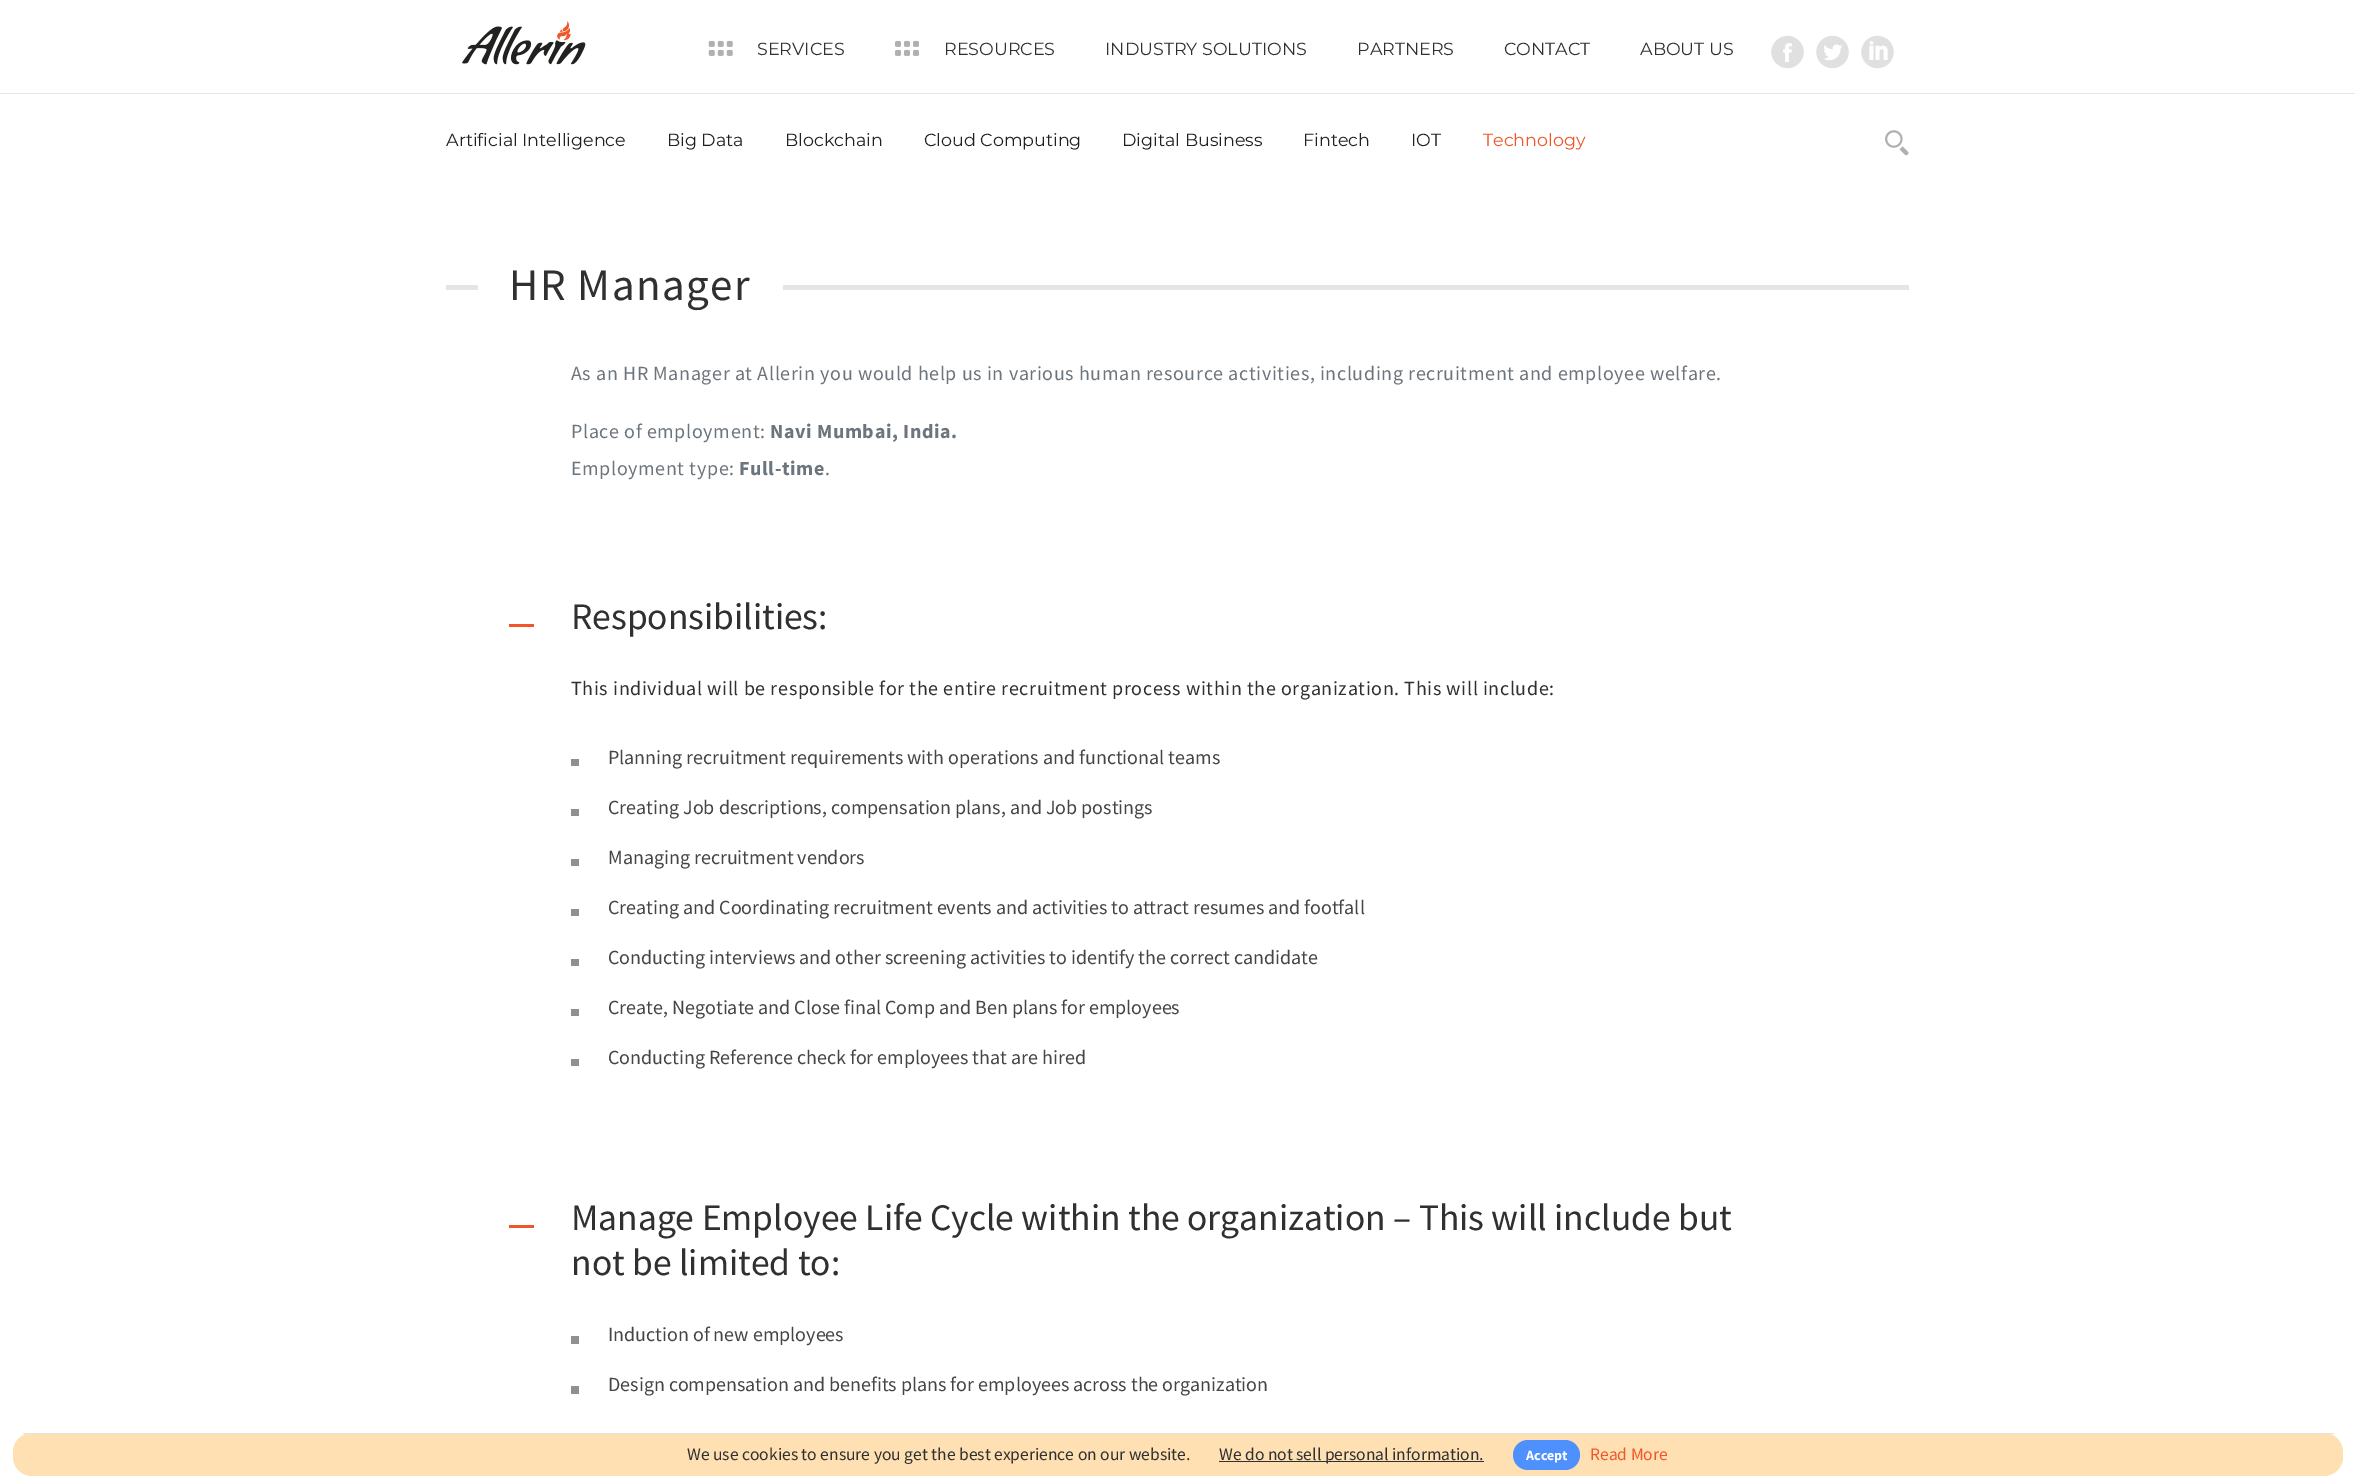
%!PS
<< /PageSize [2355 1476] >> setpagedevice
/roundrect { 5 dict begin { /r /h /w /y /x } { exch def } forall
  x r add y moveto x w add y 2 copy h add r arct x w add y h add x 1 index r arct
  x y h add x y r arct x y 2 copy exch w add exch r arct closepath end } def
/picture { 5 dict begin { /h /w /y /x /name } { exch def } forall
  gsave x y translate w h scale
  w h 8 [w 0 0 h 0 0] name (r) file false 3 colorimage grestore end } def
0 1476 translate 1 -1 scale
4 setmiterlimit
1 setgray
0 0 2355 1476 rectfill
0.898 setgray
0 93 2355 1 rectfill
(img1.rgb) 462 21 124 44 picture
(img2.rgb) 708 40 25 16 picture
/Montserrat-Regular [17.5 0 0 -17.5 0 0] selectfont
0.188 setgray
757 55 moveto (SERVICES) show
(img3.rgb) 895 40 24 16 picture
944 55 moveto (RESOURCES) show
1105 55 moveto (INDUSTRY SOLUTIONS) show
1357 55 moveto (PARTNERS) show
1504 55 moveto (CONTACT) show
1640 55 moveto (ABOUT US) show
(img4.rgb) 1771 35 33 34 picture
(img5.rgb) 1816 35 33 34 picture
(img6.rgb) 1861 35 33 34 picture
0.125 setgray
446 146 moveto (Artificial Intelligence) show
667 146 moveto (Big Data) show
785 146 moveto (Blockchain) show
924 146 moveto (Cloud Computing) show
1122 146 moveto (Digital Business) show
1303 146 moveto (Fintech) show
1411 146 moveto (IOT) show
0.937 0.341 0.165 setrgbcolor
1483 146 moveto (Technology) show
(img7.rgb) 1885 130 24 26 picture
0.898 setgray
446 285 32 5 rectfill
/SourceSansPro-Regular [45 0 0 -45 0 0] selectfont
0.188 setgray
509 300 moveto 1.5 0 (HR Manager) ashow
0.898 setgray
783 285 1126 5 rectfill
/SourceSansPro-Regular [20 0 0 -20 0 0] selectfont
0.424 0.459 0.49 setrgbcolor
571 380 moveto 0.62 0 (As an HR Manager at Allerin you would help us in various human resource activities, including recruitment and employee welfare.) ashow
571 438 moveto 0.62 0 (Place of employment:) ashow
/SourceSansPro-Bold [20 0 0 -20 0 0] selectfont
770 438 moveto 0.62 0 (Navi Mumbai, India.) ashow
/SourceSansPro-Regular [20 0 0 -20 0 0] selectfont
571 475 moveto 0.62 0 (Employment type:) ashow
/SourceSansPro-Bold [20 0 0 -20 0 0] selectfont
739 475 moveto 0.62 0 (Full-time) ashow
/SourceSansPro-Regular [20 0 0 -20 0 0] selectfont
825 475 moveto 0.62 0 (.) ashow
0.937 0.341 0.165 setrgbcolor
509 624 25 3 rectfill
/SourceSansPro-Regular [37.5 0 0 -37.5 0 0] selectfont
0.188 setgray
571 629 moveto (Responsibilities:) show
/SourceSansPro-Regular [20 0 0 -20 0 0] selectfont
571 695 moveto 0.62 0 (This individual will be responsible for the entire recruitment process within the organization. This will include:) ashow
0.565 setgray
571 759 8 7 rectfill
0.271 setgray
608 764 moveto (Planning recruitment requirements with operations and functional teams) show
0.565 setgray
571 809 8 7 rectfill
0.271 setgray
608 814 moveto (Creating Job descriptions, compensation plans, and Job postings) show
0.565 setgray
571 859 8 7 rectfill
0.271 setgray
608 864 moveto (Managing recruitment vendors) show
0.565 setgray
571 909 8 7 rectfill
0.271 setgray
608 914 moveto (Creating and Coordinating recruitment events and activities to attract resumes and footfall) show
0.565 setgray
571 959 8 7 rectfill
0.271 setgray
608 964 moveto (Conducting interviews and other screening activities to identify the correct candidate) show
0.565 setgray
571 1009 8 7 rectfill
0.271 setgray
608 1014 moveto (Create, Negotiate and Close final Comp and Ben plans for employees) show
0.565 setgray
571 1059 8 7 rectfill
0.271 setgray
608 1064 moveto (Conducting Reference check for employees that are hired) show
0.937 0.341 0.165 setrgbcolor
509 1225 25 3 rectfill
/SourceSansPro-Regular [37.5 0 0 -37.5 0 0] selectfont
0.188 setgray
571 1230 moveto (Manage Employee Life Cycle within the organization – This will include but) show
571 1275 moveto (not be limited to:) show
0.565 setgray
571 1336 8 8 rectfill
/SourceSansPro-Regular [20 0 0 -20 0 0] selectfont
0.271 setgray
608 1341 moveto (Induction of new employees) show
0.565 setgray
571 1386 8 8 rectfill
0.271 setgray
608 1391 moveto (Design compensation and benefits plans for employees across the organization) show
1 0.878 0.702 setrgbcolor
13 1433 2330 43 19 roundrect fill
0.894 setgray
23 1433 2311 1 rectfill
/SourceSansPro-Regular [17.5 0 0 -17.5 0 0] selectfont
0.188 setgray
687 1460 moveto (We use cookies to ensure you get the best experience on our website.) show
1219 1461 265 1 rectfill
1219 1460 moveto (We do not sell personal information.) show
0.302 0.565 0.996 setrgbcolor
1513 1440 67 30 15 roundrect fill
/SourceSansPro-Bold [14 0 0 -14 0 0] selectfont
1 setgray
1526 1460 moveto (Accept) show
/SourceSansPro-Regular [17.5 0 0 -17.5 0 0] selectfont
0.937 0.341 0.165 setrgbcolor
1590 1460 moveto (Read More) show
showpage
